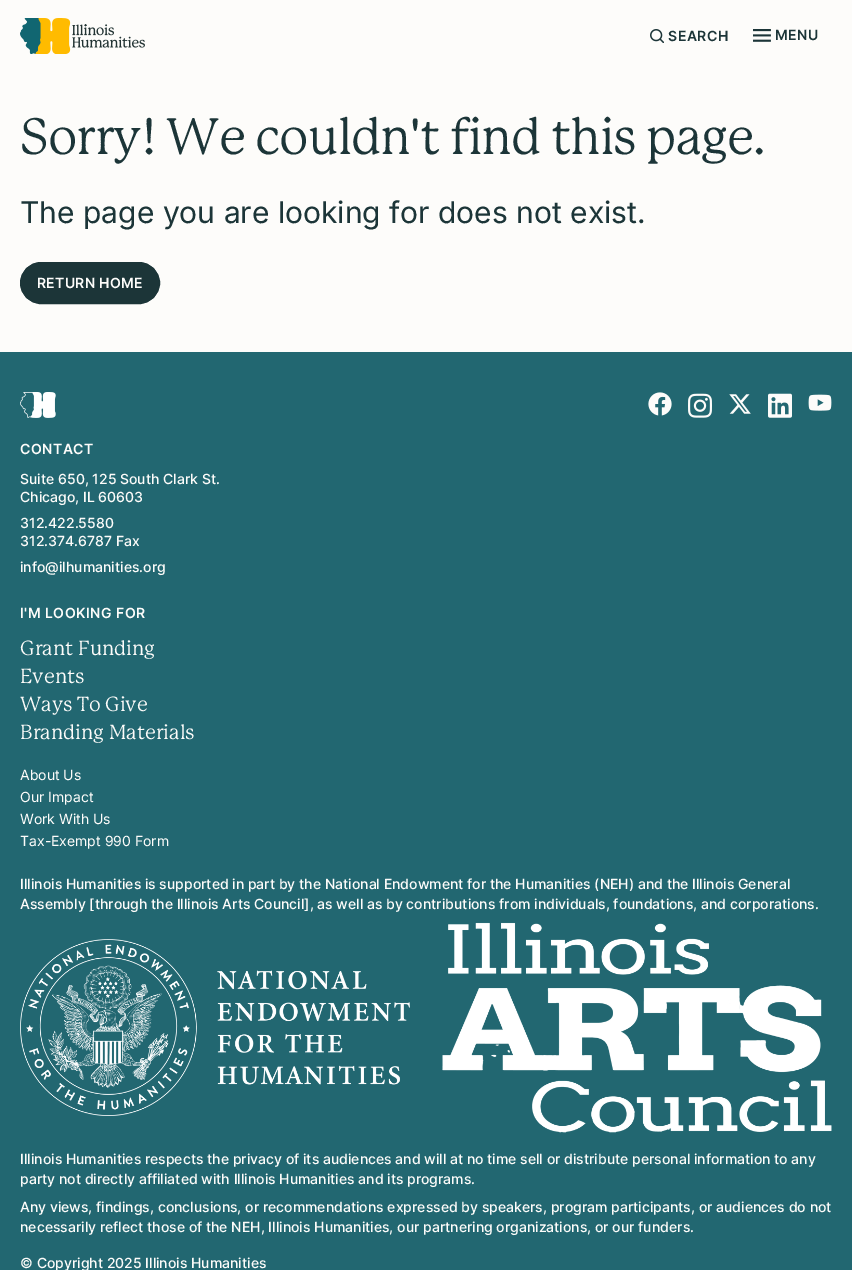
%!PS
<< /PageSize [852 1270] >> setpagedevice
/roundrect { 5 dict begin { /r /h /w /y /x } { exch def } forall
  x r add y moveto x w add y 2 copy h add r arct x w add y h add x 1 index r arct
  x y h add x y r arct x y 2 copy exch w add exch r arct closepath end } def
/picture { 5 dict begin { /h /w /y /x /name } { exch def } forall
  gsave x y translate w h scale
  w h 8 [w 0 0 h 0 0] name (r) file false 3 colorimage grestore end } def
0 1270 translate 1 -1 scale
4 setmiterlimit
0.992 0.988 0.98 setrgbcolor
0 0 852 1270 rectfill
(img1.rgb) 20 18 125 36 picture
(img2.rgb) 650 29 14 14 picture
/Inter-SemiBold [14 0 0 -14 0 0] selectfont
0.11 0.208 0.22 setrgbcolor
668 41 moveto 0.5 0 (SEARCH) ashow
(img3.rgb) 753 29 18 13 picture
775 40 moveto 0.5 0 (MENU) ashow
/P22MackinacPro-Regular [50 0 0 -50 0 0] selectfont
20 154 moveto -1 0 (Sorry! We couldn't find this page.) ashow
/Inter-Regular [30 0 0 -30 0 0] selectfont
20 223 moveto (The page you are looking for does not exist.) show
20.5 262.5 139 41 20.5 roundrect gsave fill grestore
stroke
/Inter-SemiBold [14 0 0 -14 0 0] selectfont
0.992 0.988 0.98 setrgbcolor
37 288 moveto 0.3 0 (RETURN HOME) ashow
0.133 0.404 0.443 setrgbcolor
0 352 852 918 rectfill
(img4.rgb) 20 392 36 26 picture
(img5.rgb) 648 392 24 24 picture
(img6.rgb) 688 393 24 25 picture
(img7.rgb) 729 394 22 20 picture
(img8.rgb) 768 393 24 25 picture
(img9.rgb) 808 394 24 17 picture
0.992 0.988 0.98 setrgbcolor
20 454 moveto 0.5 0 (CONTACT) ashow
/Inter-Medium [14 0 0 -14 0 0] selectfont
20 484 moveto (Suite 650, 125 South Clark St.) show
20 502 moveto (Chicago, IL 60603) show
20 528 moveto (312.422.5580) show
20 546 moveto (312.374.6787 Fax) show
20 572 moveto (info@ilhumanities.org) show
/Inter-SemiBold [14 0 0 -14 0 0] selectfont
20 618 moveto 0.5 0 (I'M LOOKING FOR) ashow
/P22MackinacPro-Regular [20 0 0 -20 0 0] selectfont
20 655 moveto (Grant Funding) show
20 683 moveto (Events) show
20 711 moveto (Ways To Give) show
20 739 moveto (Branding Materials) show
/Inter-Regular [14 0 0 -14 0 0] selectfont
20 780 moveto (About Us) show
20 802 moveto (Our Impact) show
20 824 moveto (Work With Us) show
20 846 moveto (Tax-Exempt 990 Form) show
/Inter-Medium [14 0 0 -14 0 0] selectfont
20 889 moveto (Illinois Humanities is supported in part by the National Endowment for the Humanities \(NEH\) and the Illinois General) show
20 909 moveto (Assembly [through the Illinois Arts Council], as well as by contributions from individuals, foundations, and corporations.) show
(img10.rgb) 20 939 390 177 picture
(img11.rgb) 442 922 390 211 picture
20 1164 moveto (Illinois Humanities respects the privacy of its audiences and will at no time sell or distribute personal information to any) show
20 1184 moveto (party not directly affiliated with Illinois Humanities and its programs.) show
20 1212 moveto (Any views, findings, conclusions, or recommendations expressed by speakers, program participants, or audiences do not) show
20 1232 moveto (necessarily reflect those of the NEH, Illinois Humanities, our partnering organizations, or our funders.) show
20 1268 moveto (© Copyright 2025 Illinois Humanities) show
showpage
